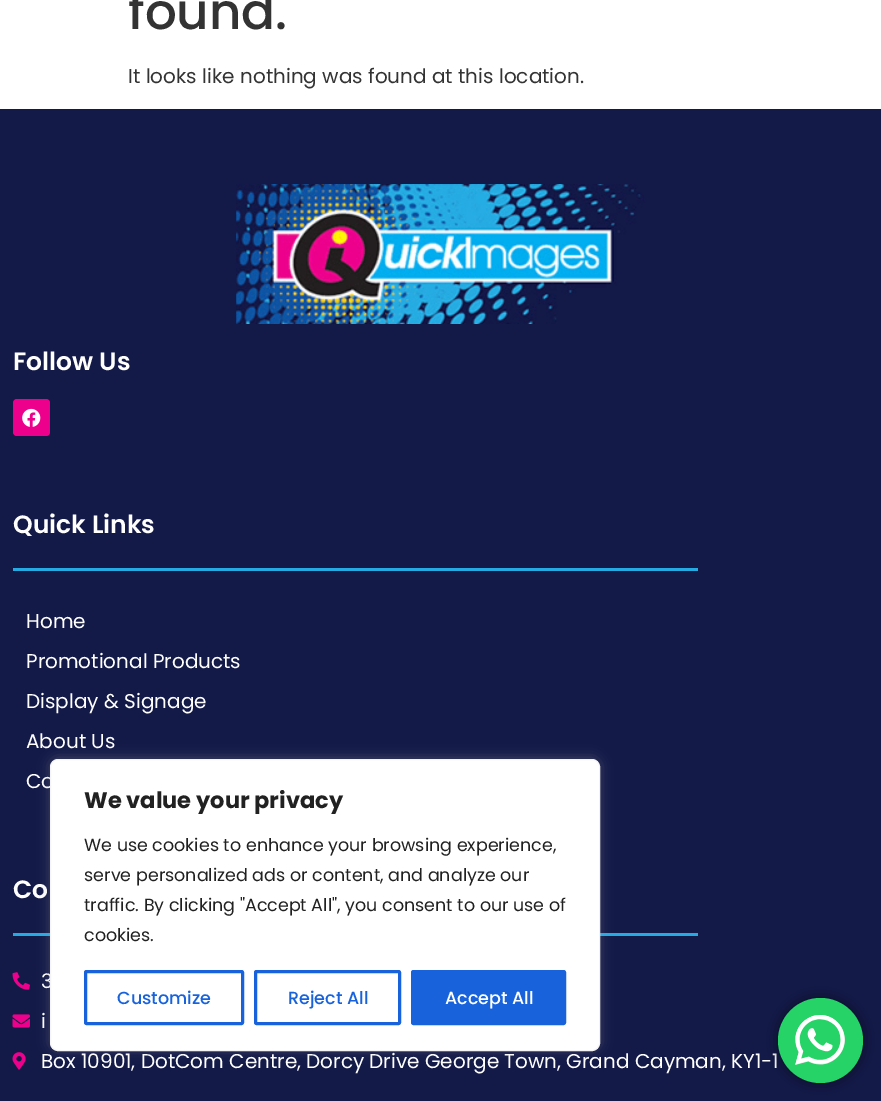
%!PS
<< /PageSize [881 1101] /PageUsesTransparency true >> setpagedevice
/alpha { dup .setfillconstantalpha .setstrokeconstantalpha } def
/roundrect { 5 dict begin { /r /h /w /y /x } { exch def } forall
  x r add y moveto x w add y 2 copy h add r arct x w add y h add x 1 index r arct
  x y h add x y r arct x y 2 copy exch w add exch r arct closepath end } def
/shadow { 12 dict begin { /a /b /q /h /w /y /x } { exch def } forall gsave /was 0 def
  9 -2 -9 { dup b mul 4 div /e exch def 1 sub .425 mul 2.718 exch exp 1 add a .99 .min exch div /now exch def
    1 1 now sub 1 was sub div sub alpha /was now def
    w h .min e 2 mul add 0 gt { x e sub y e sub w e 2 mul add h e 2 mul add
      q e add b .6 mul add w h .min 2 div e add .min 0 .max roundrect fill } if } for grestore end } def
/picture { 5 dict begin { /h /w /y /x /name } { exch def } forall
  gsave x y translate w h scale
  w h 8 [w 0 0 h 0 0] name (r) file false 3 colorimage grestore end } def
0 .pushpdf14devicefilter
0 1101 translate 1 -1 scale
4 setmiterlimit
1 setgray
0 0 881 1101 rectfill
/Poppins-Medium [50 0 0 -50 0 0] selectfont
0.2 setgray
128 29 moveto (found.) show
/Poppins-Regular [20 0 0 -20 0 0] selectfont
128 83 moveto (It looks like nothing was found at this location.) show
0.075 0.102 0.282 setrgbcolor
0 109 881 992 rectfill
(img1.rgb) 236 184 409 140 picture
/Poppins-SemiBold [25 0 0 -25 0 0] selectfont
1 setgray
13 370 moveto (Follow Us) show
0.929 0 0.545 setrgbcolor
13 399 37 37 4 roundrect fill
(img2.rgb) 22 408 19 19 picture
1 setgray
13 533 moveto (Quick Links) show
0.145 0.671 0.882 setrgbcolor
13 568 685 3 rectfill
/Poppins-Regular [20 0 0 -20 0 0] selectfont
1 setgray
26 628 moveto (Home) show
26 668 moveto (Promotional Products) show
26 708 moveto (Display & Signage) show
26 748 moveto (About Us) show
26 788 moveto (Co) show
/Poppins-SemiBold [25 0 0 -25 0 0] selectfont
13 898 moveto (Co) show
0.145 0.671 0.882 setrgbcolor
13 933 685 3 rectfill
(img3.rgb) 12 972 18 18 picture
/Poppins-Regular [20 0 0 -20 0 0] selectfont
1 setgray
41 988 moveto (3) show
(img4.rgb) 12 1014 18 14 picture
41 1028 moveto (i) show
(img5.rgb) 12 1052 14 18 picture
41 1068 moveto (Box 10901, DotCom Centre, Dorcy Drive George Town, Grand Cayman, KY1-1) show
0.675 0.671 0.671 setrgbcolor
50 758 550 292 8 6 0.3 shadow
1 setgray
50.5 759.5 549 291 7.5 roundrect gsave fill grestore
0.957 setgray
stroke
/Poppins-Bold [22.5 0 0 -22.5 0 0] selectfont
0.129 setgray
84 808 moveto (We value your privacy) show
/Poppins-Regular [17.5 0 0 -17.5 0 0] selectfont
84 851 moveto (We use cookies to enhance your browsing experience,) show
84 881 moveto (serve personalized ads or content, and analyze our) show
84 911 moveto (traffic. By clicking "Accept All", you consent to our use of) show
84 941 moveto (cookies.) show
0.094 0.388 0.863 setrgbcolor
3 setlinewidth
85.5 971.5 157 52 1 roundrect stroke
/Poppins-Medium [17.5 0 0 -17.5 0 0] selectfont
117 1004 moveto (Customize) show
255.5 971.5 144 52 1 roundrect stroke
288 1004 moveto (Reject All) show
412.5 971.5 152 52 1 roundrect gsave fill grestore
stroke
1 setgray
445 1004 moveto (Accept All) show
0 setgray
778 998 85 85 42.5 7 0.5 shadow
0.145 0.827 0.4 setrgbcolor
newpath 820.5 1040.5 42.5 0 360 arc closepath fill
(img6.rgb) 795 1015 50 50 picture
.poppdf14devicefilter showpage
